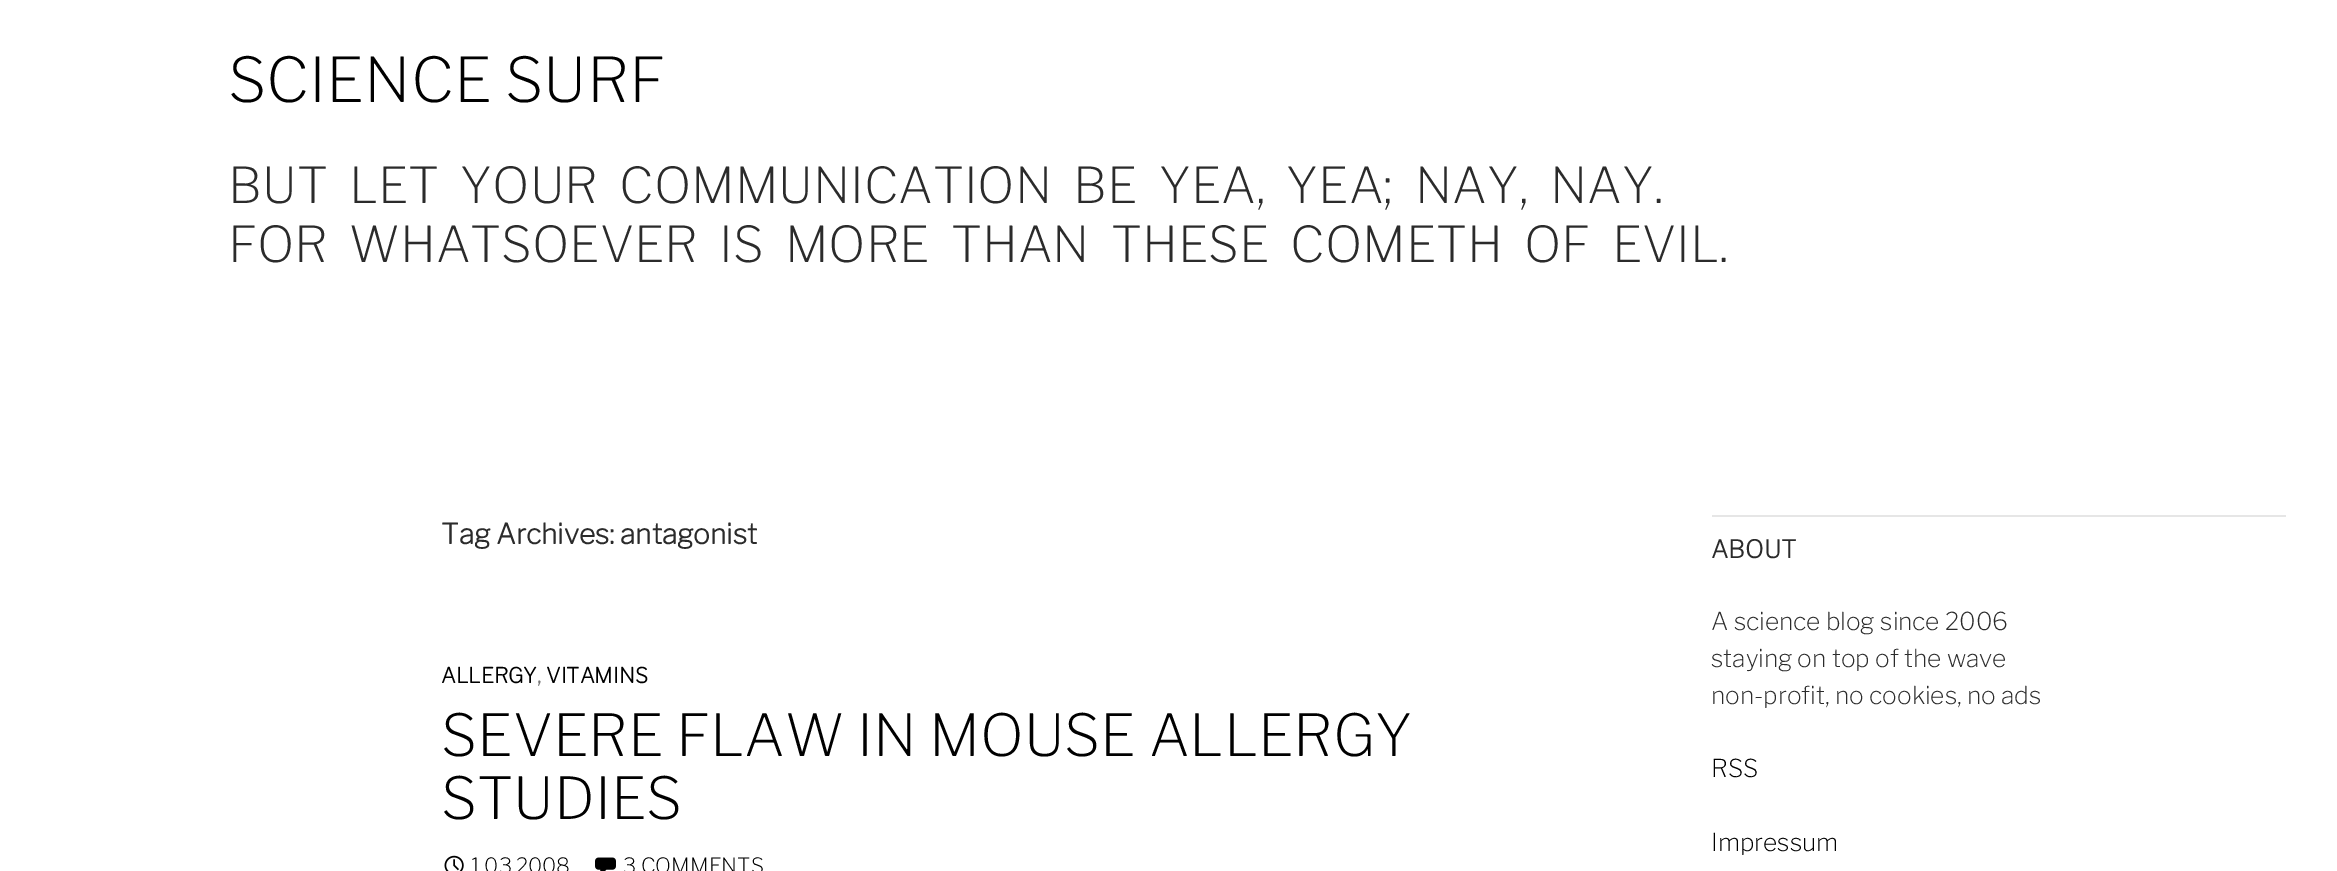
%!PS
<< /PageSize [2337 871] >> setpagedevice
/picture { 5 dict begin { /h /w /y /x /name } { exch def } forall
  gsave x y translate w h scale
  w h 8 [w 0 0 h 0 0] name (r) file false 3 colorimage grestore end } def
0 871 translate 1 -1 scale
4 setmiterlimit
1 setgray
0 0 2337 871 rectfill
/LibreFranklin-ExtraLight [61.5 0 0 -61.5 0 0] selectfont
0 setgray
228 102 moveto (SCIENCE SURF) show
/LibreFranklin-ExtraLight [49.25 0 0 -49.25 0 0] selectfont
0.169 setgray
228 203 moveto 10.5 0 32 (BUT LET YOUR COMMUNICATION BE YEA, YEA; NAY, NAY.) widthshow
228 262 moveto 10.5 0 32 (FOR WHATSOEVER IS MORE THAN THESE COMETH OF EVIL.) widthshow
/LibreFranklin-Bold [28 0 0 -28 0 0] selectfont
441 544 moveto (Tag Archives: antagonist) show
/LibreFranklin-Bold [21 0 0 -21 0 0] selectfont
0 setgray
441 683 moveto (ALLERGY) show
0.463 setgray
537 683 moveto (,) show
0 setgray
546 683 moveto (VITAMINS) show
/LibreFranklin-ExtraLight [57.75 0 0 -57.75 0 0] selectfont
441 756 moveto (SEVERE FLAW IN MOUSE ALLERGY) show
441 819 moveto (STUDIES) show
(img1.rgb) 444 855 20 16 picture
/LibreFranklin-ExtraLight [21 0 0 -21 0 0] selectfont
471 873 moveto (1.03.2008) show
(img2.rgb) 595 857 21 14 picture
623 873 moveto (3 COMMENTS) show
0.902 setgray
1712 515 574 2 rectfill
/LibreFranklin-Bold [24.5 0 0 -24.5 0 0] selectfont
0.169 setgray
1711 558 moveto (ABOUT) show
/LibreFranklin-ExtraLight [24.5 0 0 -24.5 0 0] selectfont
1711 630 moveto (A science blog since 2006) show
1711 667 moveto (staying on top of the wave) show
1711 704 moveto (non-profit, no cookies, no ads) show
0 setgray
1711 777 moveto (RSS) show
1711 851 moveto (Impressum) show
showpage
